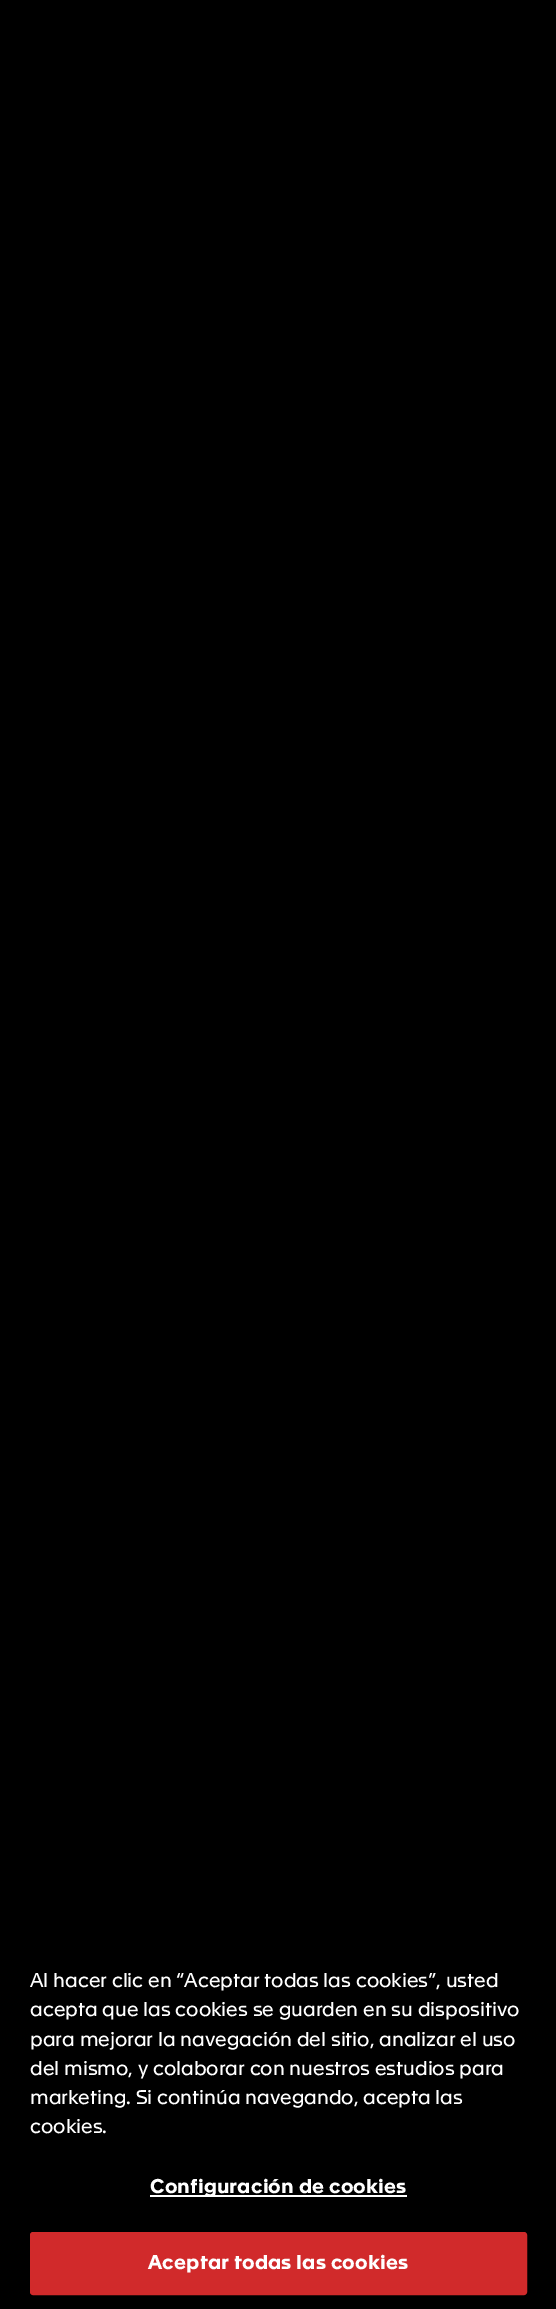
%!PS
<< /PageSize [556 2309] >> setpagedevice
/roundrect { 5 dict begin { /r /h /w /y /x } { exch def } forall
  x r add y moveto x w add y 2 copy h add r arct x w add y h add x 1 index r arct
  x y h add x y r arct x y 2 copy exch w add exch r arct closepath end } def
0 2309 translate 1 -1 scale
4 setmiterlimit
0 setgray
0 0 556 2309 rectfill
/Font-Regular [19.5 0 0 -19.5 0 0] selectfont
1 setgray
30 1987 moveto (Al hacer clic en “Aceptar todas las cookies”, usted) show
30 2016 moveto (acepta que las cookies se guarden en su dispositivo) show
30 2046 moveto (para mejorar la navegación del sitio, analizar el uso) show
30 2075 moveto (del mismo, y colaborar con nuestros estudios para) show
30 2104 moveto (marketing. Si continúa navegando, acepta las) show
30 2133 moveto (cookies.) show
150 2195 257 2 rectfill
/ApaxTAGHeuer-Bold [19.5 0 0 -19.5 0 0] selectfont
150 2193 moveto 0.2 0 (Configuración de cookies) ashow
0.82 0.165 0.169 setrgbcolor
31 2233 495 61 2 roundrect gsave fill grestore
2 setlinewidth
stroke
1 setgray
148 2269 moveto 0.2 0 (Aceptar todas las cookies) ashow
showpage
